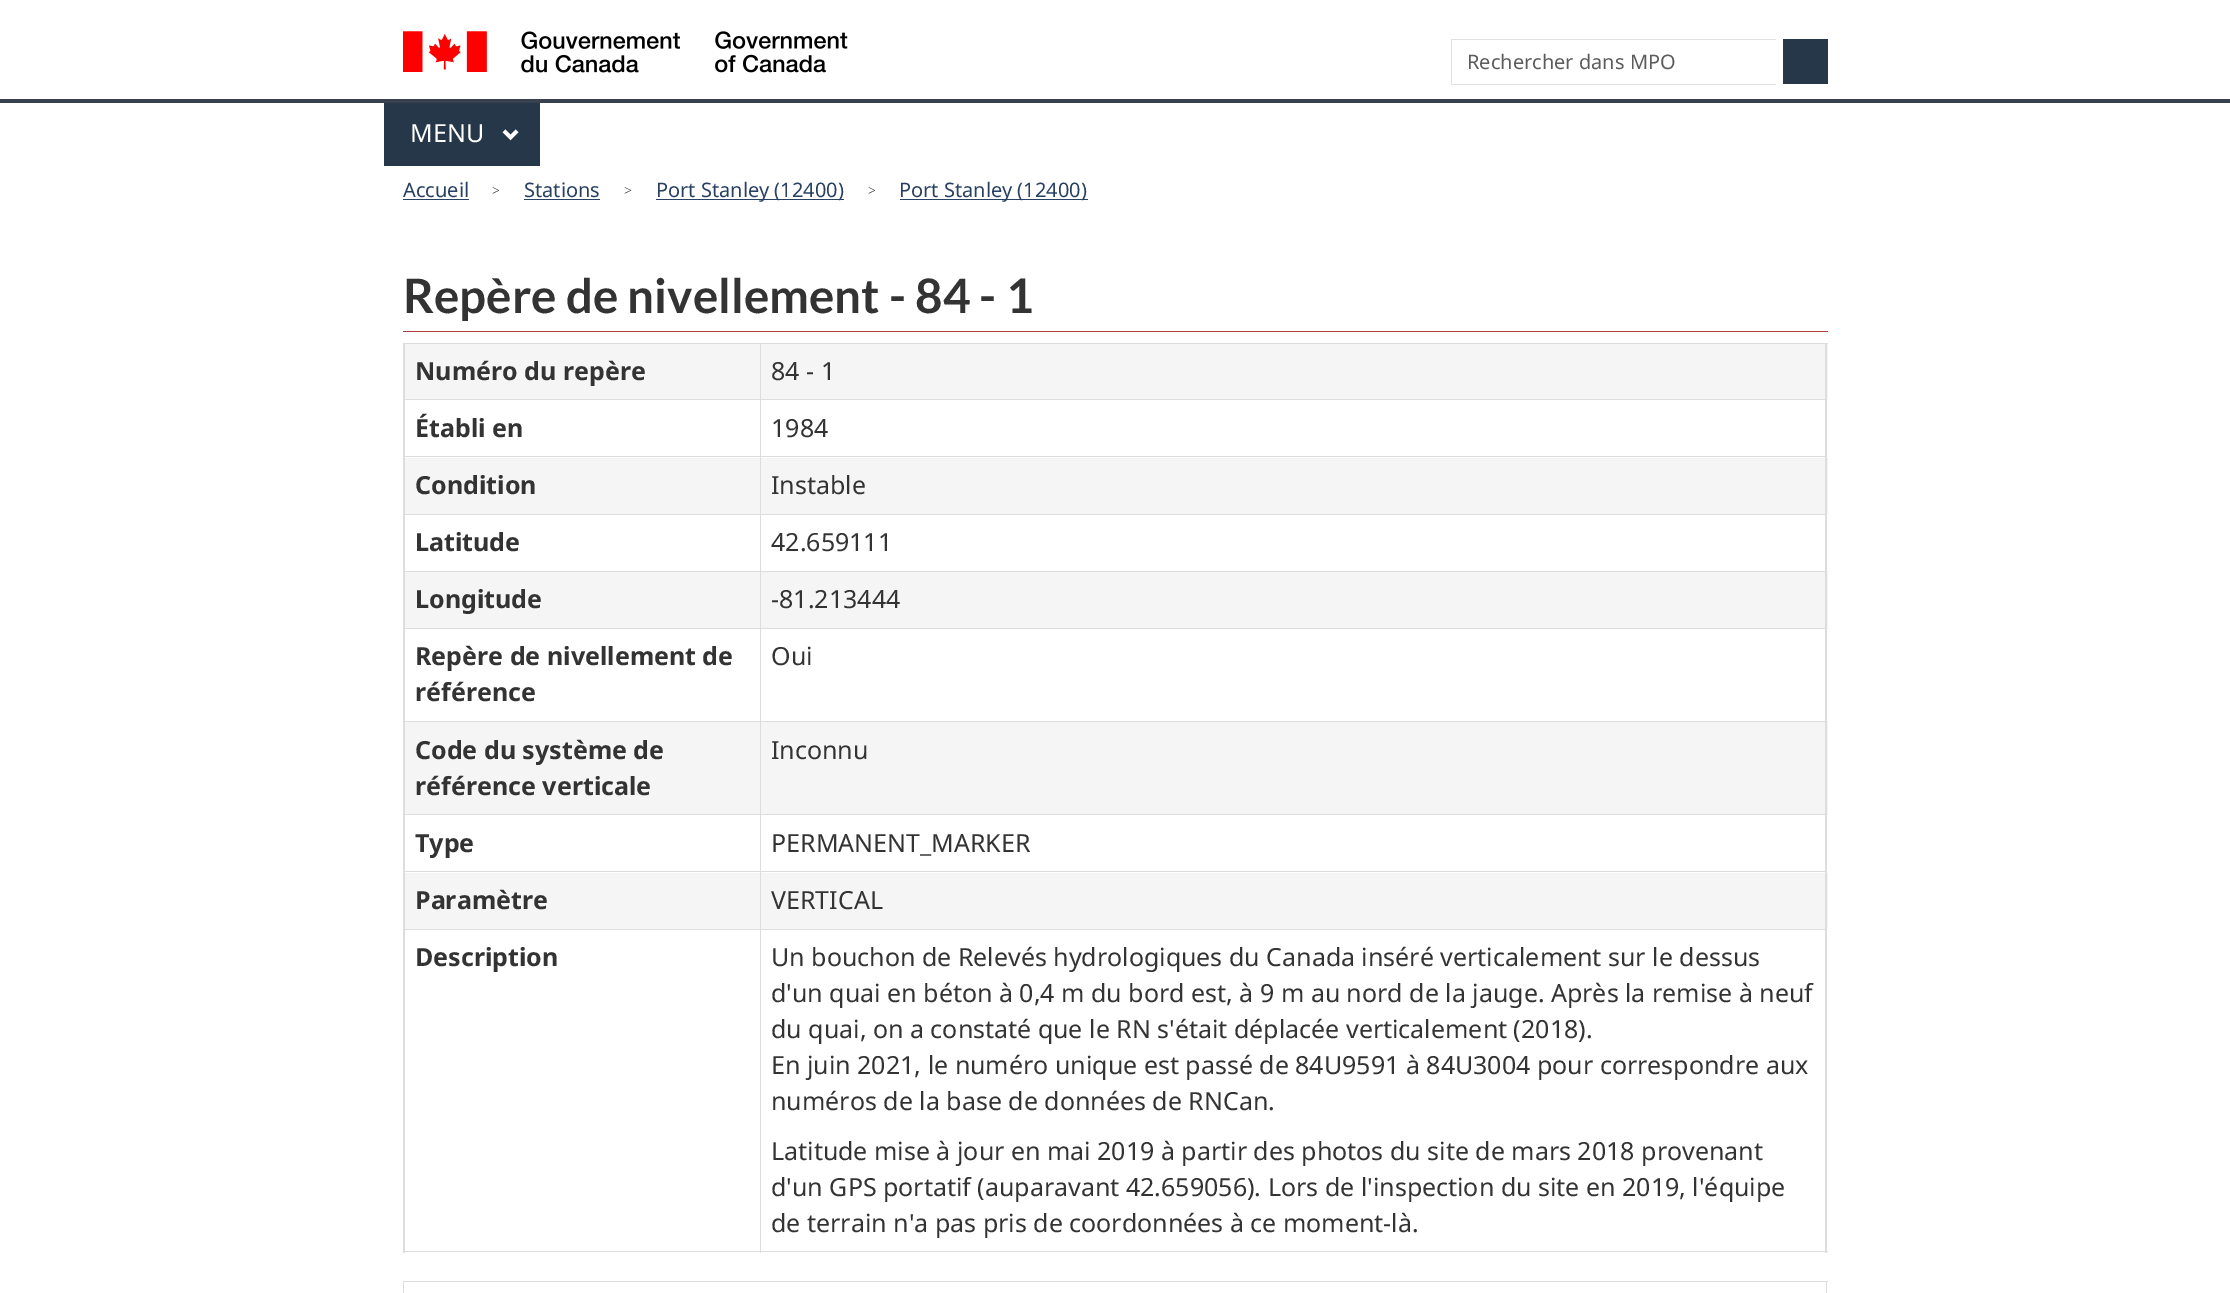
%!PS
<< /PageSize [2230 1293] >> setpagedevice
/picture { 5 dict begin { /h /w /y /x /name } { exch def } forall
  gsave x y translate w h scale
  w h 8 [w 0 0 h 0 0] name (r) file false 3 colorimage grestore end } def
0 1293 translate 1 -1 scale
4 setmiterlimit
1 setgray
0 0 2230 1293 rectfill
(img1.rgb) 403 31 445 42 picture
0.878 setgray
1451 39 325 1 rectfill
1451 84 325 1 rectfill
1451 39 1 46 rectfill
/NotoSans-Regular [20 0 0 -20 0 0] selectfont
0.361 setgray
1467 69 moveto (Rechercher dans MPO) show
0.149 0.216 0.29 setrgbcolor
1783 39 45 45 rectfill
0.22 0.255 0.302 setrgbcolor
0 99 2230 4 rectfill
0.149 0.216 0.29 setrgbcolor
384 103 156 63 rectfill
/NotoSans-Regular [25 0 0 -25 0 0] selectfont
1 setgray
410 142 moveto (MENU) show
(img2.rgb) 502 129 17 12 picture
/NotoSans-Regular [20 0 0 -20 0 0] selectfont
0.157 0.255 0.384 setrgbcolor
403 197 moveto (Accueil) show
403 199 66 1 rectfill
/LiberationSerif-Regular [14 0 0 -14 0 0] selectfont
0.2 setgray
492 195 moveto (>) show
/NotoSans-Regular [20 0 0 -20 0 0] selectfont
0.157 0.255 0.384 setrgbcolor
524 197 moveto (Stations) show
524 199 76 1 rectfill
/LiberationSerif-Regular [14 0 0 -14 0 0] selectfont
0.2 setgray
624 195 moveto (>) show
0.157 0.255 0.384 setrgbcolor
656 199 188 1 rectfill
/NotoSans-Regular [20 0 0 -20 0 0] selectfont
656 197 moveto (Port Stanley \(12400\)) show
/LiberationSerif-Regular [14 0 0 -14 0 0] selectfont
0.2 setgray
868 195 moveto (>) show
0.157 0.255 0.384 setrgbcolor
900 199 188 1 rectfill
/NotoSans-Regular [20 0 0 -20 0 0] selectfont
899 197 moveto (Port Stanley \(12400\)) show
0.686 0.235 0.263 setrgbcolor
403 331 1425 1 rectfill
/Lato-Bold [47.5 0 0 -47.5 0 0] selectfont
0.2 setgray
403 313 moveto (Repère de nivellement - 84 - 1) show
0.867 setgray
403 343 1425 1 rectfill
0.961 setgray
405 344 1423 56 rectfill
405 458 1423 56 rectfill
405 571 1423 58 rectfill
405 721 1423 94 rectfill
405 873 1423 56 rectfill
0.867 setgray
1826 343 1 910 rectfill
403 1251 1425 1 rectfill
403 343 1 910 rectfill
/NotoSans-Bold [25 0 0 -25 0 0] selectfont
0.2 setgray
415 380 moveto (Numéro du repère) show
0.867 setgray
760 399 1066 1 rectfill
760 456 1066 1 rectfill
760 514 1066 1 rectfill
760 571 1066 1 rectfill
760 628 1066 1 rectfill
760 721 1066 1 rectfill
760 814 1066 1 rectfill
760 871 1066 1 rectfill
760 929 1066 1 rectfill
760 929 1 324 rectfill
404 929 357 1 rectfill
760 871 1 59 rectfill
404 871 357 1 rectfill
760 814 1 59 rectfill
404 814 357 1 rectfill
760 721 1 94 rectfill
404 721 357 1 rectfill
760 628 1 95 rectfill
404 628 357 1 rectfill
760 571 1 58 rectfill
404 571 357 1 rectfill
760 514 1 59 rectfill
404 514 357 1 rectfill
760 456 1 59 rectfill
404 456 357 1 rectfill
760 399 1 59 rectfill
404 399 357 1 rectfill
760 343 1 57 rectfill
/NotoSans-Regular [25 0 0 -25 0 0] selectfont
0.2 setgray
771 380 moveto (84 - 1) show
0.867 setgray
404 929 1 324 rectfill
404 871 1 59 rectfill
404 814 1 59 rectfill
404 721 1 94 rectfill
404 628 1 95 rectfill
404 571 1 58 rectfill
404 514 1 59 rectfill
404 456 1 59 rectfill
404 343 1 115 rectfill
/NotoSans-Bold [25 0 0 -25 0 0] selectfont
0.2 setgray
415 437 moveto (Établi en) show
0.867 setgray
1825 929 1 324 rectfill
1825 871 1 59 rectfill
1825 814 1 59 rectfill
1825 721 1 94 rectfill
1825 628 1 95 rectfill
1825 571 1 58 rectfill
1825 514 1 59 rectfill
1825 456 1 59 rectfill
1825 343 1 115 rectfill
/NotoSans-Regular [25 0 0 -25 0 0] selectfont
0.2 setgray
771 437 moveto (1984) show
/NotoSans-Bold [25 0 0 -25 0 0] selectfont
415 494 moveto (Condition) show
/NotoSans-Regular [25 0 0 -25 0 0] selectfont
771 494 moveto (Instable) show
/NotoSans-Bold [25 0 0 -25 0 0] selectfont
415 551 moveto (Latitude) show
/NotoSans-Regular [25 0 0 -25 0 0] selectfont
771 551 moveto (42.659111) show
/NotoSans-Bold [25 0 0 -25 0 0] selectfont
415 608 moveto (Longitude) show
/NotoSans-Regular [25 0 0 -25 0 0] selectfont
771 608 moveto (-81.213444) show
/NotoSans-Bold [25 0 0 -25 0 0] selectfont
415 665 moveto (Repère de nivellement de) show
415 701 moveto (référence) show
/NotoSans-Regular [25 0 0 -25 0 0] selectfont
771 665 moveto (Oui) show
/NotoSans-Bold [25 0 0 -25 0 0] selectfont
415 759 moveto (Code du système de) show
415 795 moveto (référence verticale) show
/NotoSans-Regular [25 0 0 -25 0 0] selectfont
771 759 moveto (Inconnu) show
/NotoSans-Bold [25 0 0 -25 0 0] selectfont
415 852 moveto (Type) show
/NotoSans-Regular [25 0 0 -25 0 0] selectfont
771 852 moveto (PERMANENT_MARKER) show
/NotoSans-Bold [25 0 0 -25 0 0] selectfont
415 909 moveto (Paramètre) show
/NotoSans-Regular [25 0 0 -25 0 0] selectfont
771 909 moveto (VERTICAL) show
/NotoSans-Bold [25 0 0 -25 0 0] selectfont
415 966 moveto (Description) show
/NotoSans-Regular [25 0 0 -25 0 0] selectfont
771 966 moveto (Un bouchon de Relevés hydrologiques du Canada inséré verticalement sur le dessus) show
771 1002 moveto (d'un quai en béton à 0,4 m du bord est, à 9 m au nord de la jauge. Après la remise à neuf) show
771 1038 moveto (du quai, on a constaté que le RN s'était déplacée verticalement \(2018\).) show
771 1074 moveto (En juin 2021, le numéro unique est passé de 84U9591 à 84U3004 pour correspondre aux) show
771 1110 moveto (numéros de la base de données de RNCan.) show
771 1160 moveto (Latitude mise à jour en mai 2019 à partir des photos du site de mars 2018 provenant) show
771 1196 moveto (d'un GPS portatif \(auparavant 42.659056\). Lors de l'inspection du site en 2019, l'équipe) show
771 1232 moveto (de terrain n'a pas pris de coordonnées à ce moment-là.) show
0.867 setgray
403 1281 1425 1 rectfill
1826 1281 1 12 rectfill
403 1281 1 12 rectfill
showpage
